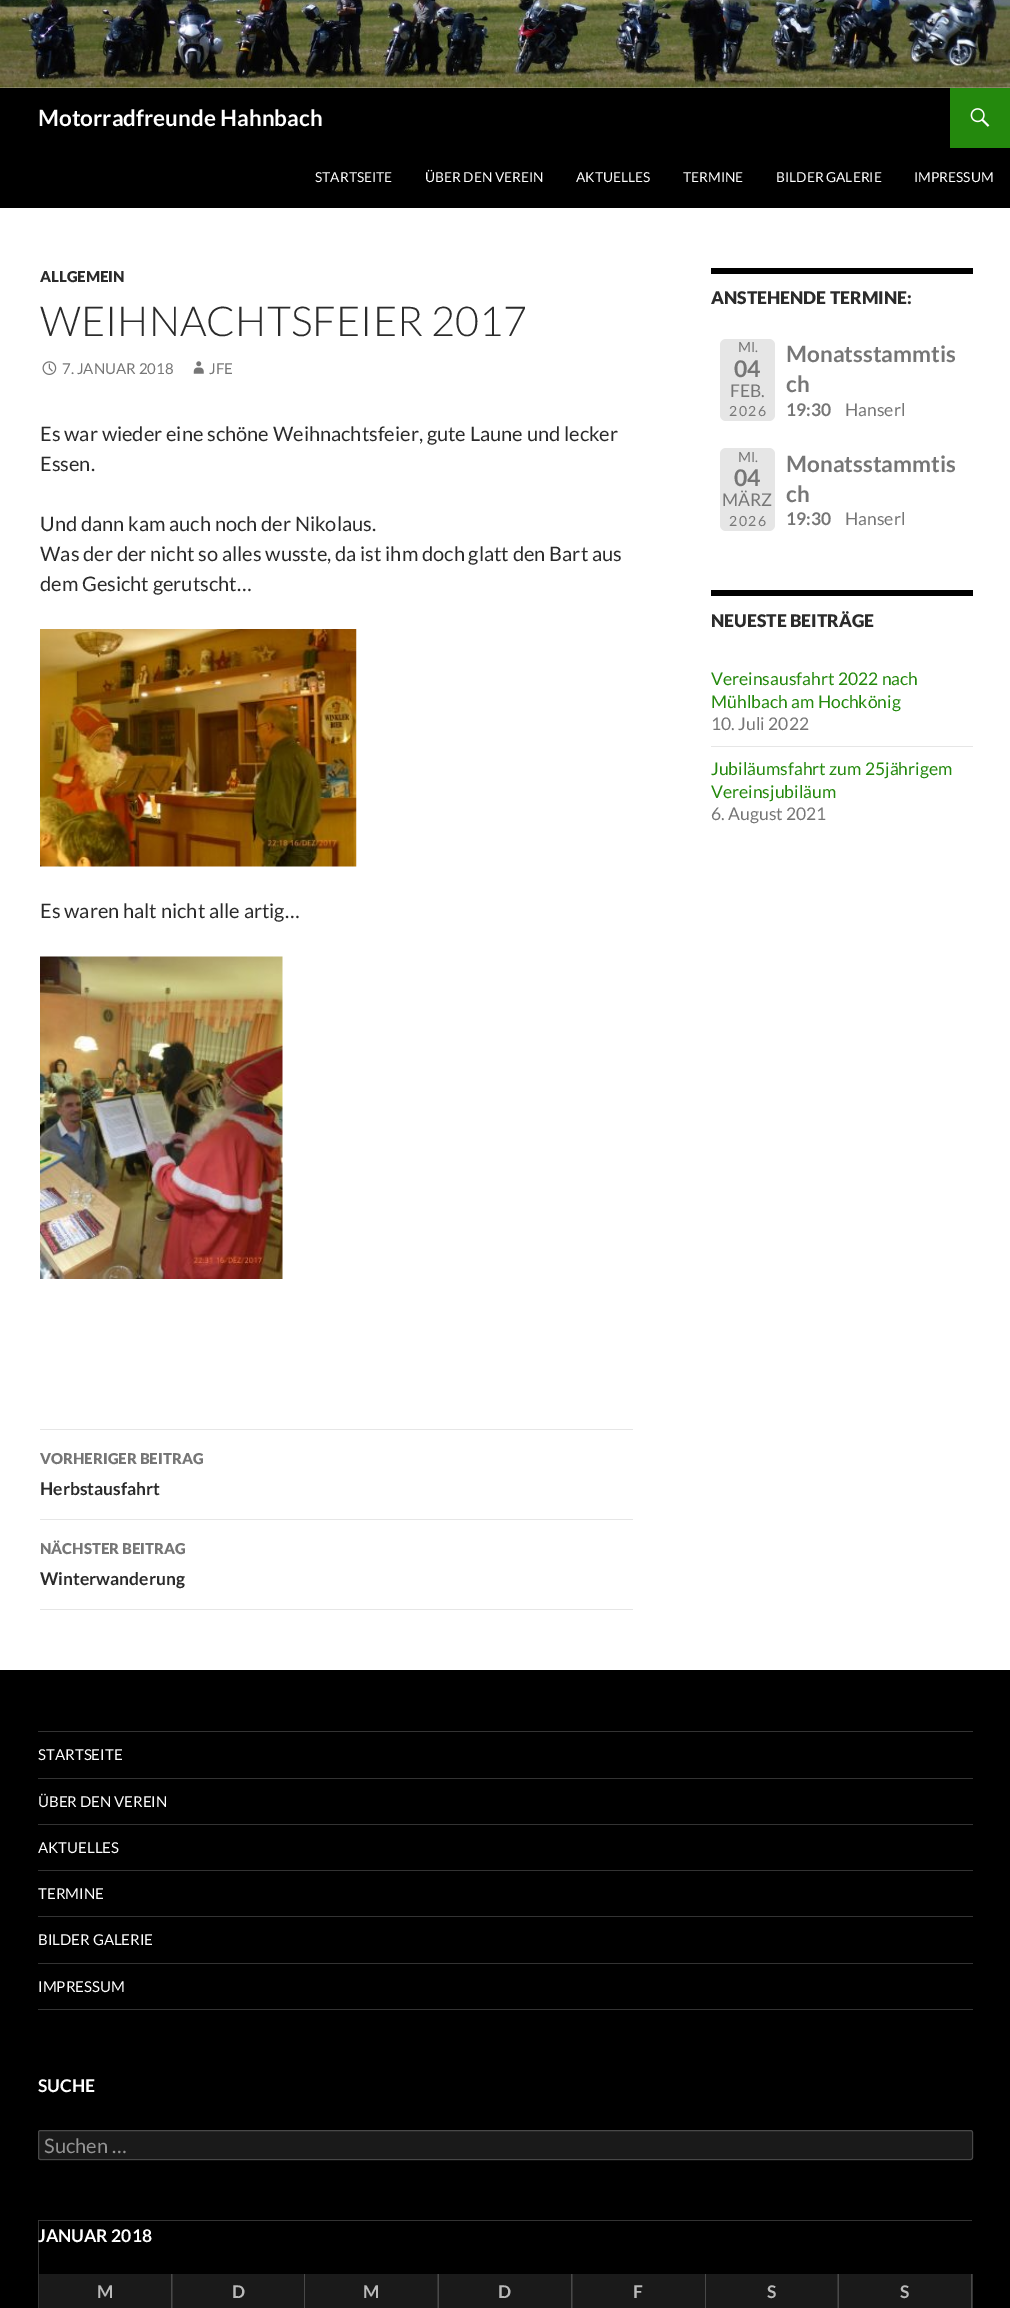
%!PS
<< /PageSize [1010 2308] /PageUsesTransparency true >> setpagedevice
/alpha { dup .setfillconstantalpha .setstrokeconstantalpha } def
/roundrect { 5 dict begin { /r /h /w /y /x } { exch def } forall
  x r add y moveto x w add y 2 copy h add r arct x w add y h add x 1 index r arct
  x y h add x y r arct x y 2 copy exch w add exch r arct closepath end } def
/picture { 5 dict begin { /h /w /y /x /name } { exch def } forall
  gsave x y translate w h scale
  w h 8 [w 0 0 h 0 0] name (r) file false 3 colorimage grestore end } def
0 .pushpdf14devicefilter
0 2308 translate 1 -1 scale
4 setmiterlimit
1 setgray
0 0 1010 2308 rectfill
(img1.rgb) 0 0 1010 88 picture
0 setgray
0 88 1010 120 rectfill
/Lato-Bold [22.5 0 0 -22.5 0 0] selectfont
1 setgray
38 126 moveto (Motorradfreunde Hahnbach) show
0.141 0.537 0.051 setrgbcolor
950 88 60 60 rectfill
(img2.rgb) 970 108 20 19 picture
/Lato-Regular [13.75 0 0 -13.75 0 0] selectfont
1 setgray
315 182 moveto (STARTSEITE) show
425 182 moveto (ÜBER DEN VEREIN) show
576 182 moveto (AKTUELLES) show
683 182 moveto (TERMINE) show
776 182 moveto (BILDER GALERIE) show
914 182 moveto (IMPRESSUM) show
/Lato-Black [15 0 0 -15 0 0] selectfont
0.169 setgray
40 282 moveto (ALLGEMEIN) show
/Lato-Light [41.25 0 0 -41.25 0 0] selectfont
40 336 moveto (WEIHNACHTSFEIER 2017) show
(img3.rgb) 42 361 15 14 picture
/Lato-Regular [15 0 0 -15 0 0] selectfont
0.463 setgray
62 374 moveto (7. JANUAR 2018) show
(img4.rgb) 193 361 11 13 picture
209 374 moveto (JFE) show
/Lato-Regular [20 0 0 -20 0 0] selectfont
0.169 setgray
40 441 moveto (Es war wieder eine schöne Weihnachtsfeier, gute Laune und lecker) show
40 471 moveto (Essen.) show
40 531 moveto (Und dann kam auch noch der Nikolaus.) show
40 561 moveto (Was der der nicht so alles wusste, da ist ihm doch glatt den Bart aus) show
40 591 moveto (dem Gesicht gerutscht…) show
(img5.rgb) 40 629 317 238 picture
40 918 moveto (Es waren halt nicht alle artig…) show
(img6.rgb) 40 956 243 323 picture
0.902 setgray
40 1429 593 1 rectfill
40 1519 593 1 rectfill
/Lato-Black [15 0 0 -15 0 0] selectfont
0.463 setgray
40 1464 moveto (VORHERIGER BEITRAG) show
/Lato-Bold [17.5 0 0 -17.5 0 0] selectfont
0.169 setgray
40 1495 moveto (Herbstausfahrt) show
0.902 setgray
40 1609 593 1 rectfill
/Lato-Black [15 0 0 -15 0 0] selectfont
0.463 setgray
40 1554 moveto (NÄCHSTER BEITRAG) show
/Lato-Bold [17.5 0 0 -17.5 0 0] selectfont
0.169 setgray
40 1585 moveto (Winterwanderung) show
0 setgray
711 268 262 6 rectfill
/Lato-Black [17.5 0 0 -17.5 0 0] selectfont
0.169 setgray
711 304 moveto (ANSTEHENDE TERMINE:) show
0.902 setgray
720 339 55 82 6 roundrect fill
/Lato-Regular [14 0 0 -14 0 0] selectfont
0.463 setgray
738 352 moveto (MI.) show
/Lato-Bold [23 0 0 -23 0 0] selectfont
734 377 moveto (04) show
/Lato-Regular [17.5 0 0 -17.5 0 0] selectfont
730 397 moveto (FEB.) show
/Lato-Regular [14 0 0 -14 0 0] selectfont
729 416 moveto 1.5 0 (2026) ashow
/Lato-Bold [22.5 0 0 -22.5 0 0] selectfont
786 362 moveto (Monatsstammtis) show
786 392 moveto (ch) show
/Lato-Bold [17.5 0 0 -17.5 0 0] selectfont
786 416 moveto (19:30) show
/Lato-Regular [17.5 0 0 -17.5 0 0] selectfont
845 416 moveto (Hanserl) show
0.902 setgray
720 448 55 83 6 roundrect fill
/Lato-Regular [14 0 0 -14 0 0] selectfont
0.463 setgray
738 462 moveto (MI.) show
/Lato-Bold [23 0 0 -23 0 0] selectfont
734 486 moveto (04) show
/Lato-Regular [17.5 0 0 -17.5 0 0] selectfont
722 506 moveto (MÄRZ) show
/Lato-Regular [14 0 0 -14 0 0] selectfont
729 526 moveto 1.5 0 (2026) ashow
/Lato-Bold [22.5 0 0 -22.5 0 0] selectfont
786 472 moveto (Monatsstammtis) show
786 502 moveto (ch) show
/Lato-Bold [17.5 0 0 -17.5 0 0] selectfont
786 525 moveto (19:30) show
/Lato-Regular [17.5 0 0 -17.5 0 0] selectfont
845 525 moveto (Hanserl) show
0 setgray
711 590 262 6 rectfill
/Lato-Black [17.5 0 0 -17.5 0 0] selectfont
0.169 setgray
711 627 moveto (NEUESTE BEITRÄGE) show
/Lato-Regular [17.5 0 0 -17.5 0 0] selectfont
0.141 0.537 0.051 setrgbcolor
711 685 moveto (Vereinsausfahrt 2022 nach) show
711 708 moveto (Mühlbach am Hochkönig) show
0.463 setgray
711 730 moveto (10. Juli 2022) show
0.902 setgray
711 746 262 1 rectfill
0.141 0.537 0.051 setrgbcolor
711 775 moveto (Jubiläumsfahrt zum 25jährigem) show
711 798 moveto (Vereinsjubiläum) show
0.463 setgray
711 820 moveto (6. August 2021) show
0 setgray
0 1670 1010 638 rectfill
0.2 setgray
38 2009 935 1 rectfill
38 1731 935 1 rectfill
/Lato-Regular [15 0 0 -15 0 0] selectfont
1 setgray
38 1760 moveto (STARTSEITE) show
0.2 setgray
38 1778 935 1 rectfill
1 setgray
38 1807 moveto (ÜBER DEN VEREIN) show
0.2 setgray
38 1824 935 1 rectfill
1 setgray
38 1853 moveto (AKTUELLES) show
0.2 setgray
38 1870 935 1 rectfill
1 setgray
38 1899 moveto (TERMINE) show
0.2 setgray
38 1916 935 1 rectfill
1 setgray
38 1945 moveto (BILDER GALERIE) show
0.2 setgray
38 1963 935 1 rectfill
1 setgray
38 1992 moveto (IMPRESSUM) show
/Lato-Bold [17.5 0 0 -17.5 0 0] selectfont
38 2092 moveto (SUCHE) show
0.102 setgray
38 2130 935 30 2.5 roundrect fill
0.2 alpha
1 setgray
38.5 2130.5 934 29 2 roundrect stroke
/Lato-Regular [20 0 0 -20 0 0] selectfont
1 alpha
0.576 setgray
44 2153 moveto (Suchen …) show
0.2 setgray
newpath 38 2220 moveto 972 2220 lineto 972 2221 lineto 39 2221 lineto closepath fill
0.2 alpha
1 setgray
newpath 38 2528 moveto 38 2220 lineto 39 2221 lineto 39 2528 lineto closepath fill
/Lato-Bold [17.5 0 0 -17.5 0 0] selectfont
1 alpha
38 2242 moveto (JANUAR 2018) show
0.102 setgray
39 2274 265 34 rectfill
0.282 setgray
newpath 172.5 2274 moveto 172.5 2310 lineto 171 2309 lineto 171 2274 lineto closepath fill
0.729 setgray
97 2298 moveto (M) show
0.282 setgray
newpath 305 2274 moveto 305 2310 lineto 304 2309 lineto 304 2274 lineto closepath fill
0.729 setgray
232 2298 moveto (D) show
0.102 setgray
305 2274 133 34 rectfill
0.282 setgray
newpath 439 2274 moveto 439 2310 lineto 437.5 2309 lineto 437.5 2274 lineto closepath fill
0.729 setgray
363 2298 moveto (M) show
0.102 setgray
439 2274 266 34 rectfill
0.282 setgray
newpath 572.5 2274 moveto 572.5 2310 lineto 571 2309 lineto 571 2274 lineto closepath fill
0.729 setgray
498 2298 moveto (D) show
0.282 setgray
newpath 706 2274 moveto 706 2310 lineto 705 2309 lineto 705 2274 lineto closepath fill
0.729 setgray
633 2298 moveto (F) show
0.102 setgray
706 2274 132 34 rectfill
0.282 setgray
newpath 839 2274 moveto 839 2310 lineto 837.5 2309 lineto 837.5 2274 lineto closepath fill
0.729 setgray
767 2298 moveto (S) show
0.102 setgray
839 2274 134 34 rectfill
0.282 setgray
newpath 972.5 2274 moveto 972.5 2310 lineto 971 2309 lineto 971 2274 lineto closepath fill
0.729 setgray
900 2298 moveto (S) show
.poppdf14devicefilter showpage
